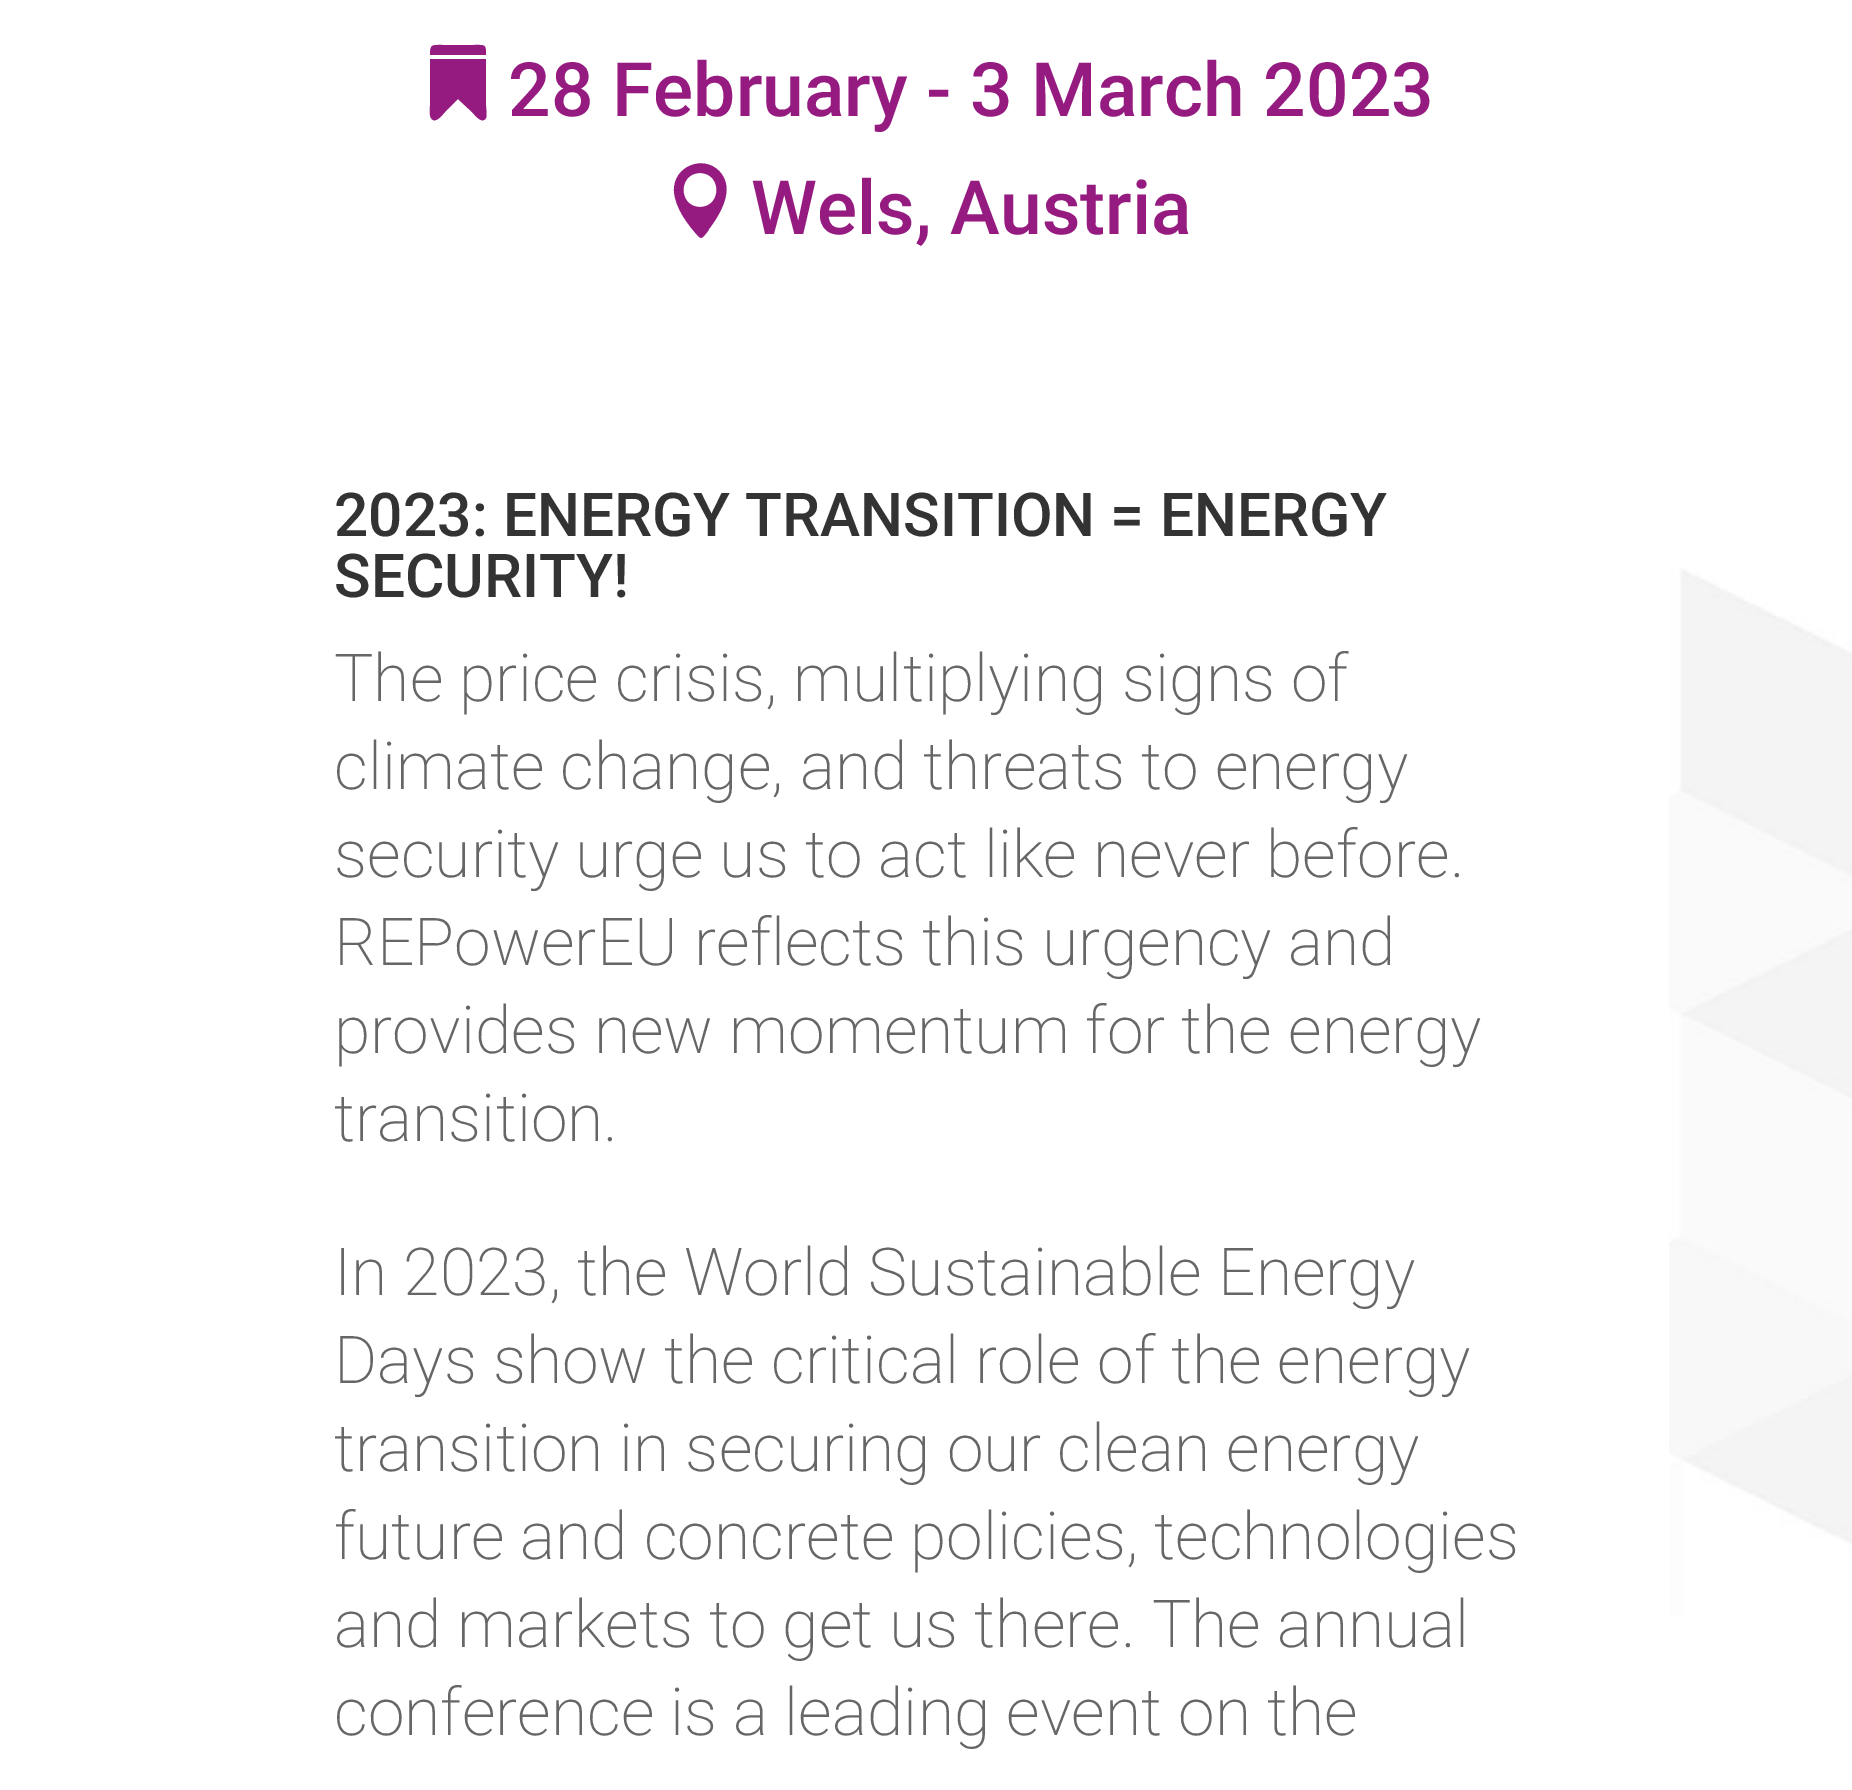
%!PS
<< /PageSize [1852 1790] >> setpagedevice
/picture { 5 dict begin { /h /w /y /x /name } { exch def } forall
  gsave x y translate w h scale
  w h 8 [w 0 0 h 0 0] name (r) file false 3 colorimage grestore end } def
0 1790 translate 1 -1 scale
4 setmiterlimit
1 setgray
0 0 1852 1790 rectfill
(img1.rgb) 1669 568 183 1048 picture
0.584 0.106 0.502 setrgbcolor
newpath 430 59 moveto 430 106 lineto 430 107 429 115 431 118 curveto 435 125 443 114 445 112 curveto 458 99 lineto 472 112 lineto 474 114 482 125 486 118 curveto 487 115 486 107 486 106 curveto 486 59 lineto closepath 486 55 moveto 486 44 485 45 474 45 curveto 443 45 lineto 432 45 430 44 430 55 curveto closepath fill
/Roboto-Medium [75 0 0 -75 0 0] selectfont
508 116 moveto (28 February - 3 March 2023) show
newpath 699 237 moveto 701 238 lineto 703 238 709 230 709 229 curveto 721 213 735 189 720 172 curveto 704 154 673 166 674 191 curveto 675 208 688 225 699 237 curveto closepath 700 173 moveto 722 173 722 207 700 207 curveto 678 207 678 173 700 173 curveto closepath fill
751 234 moveto (Wels, Austria) show
/Roboto-Medium [60.5 0 0 -60.5 0 0] selectfont
0.2 setgray
334 536 moveto (2023: ENERGY TRANSITION = ENERGY) show
334 597 moveto (SECURITY!) show
/Roboto-ExtraLight [66 0 0 -66 0 0] selectfont
0.4 setgray
334 701 moveto (The price crisis, multiplying signs of) show
334 789 moveto (climate change, and threats to energy) show
334 877 moveto (security urge us to act like never before.) show
334 965 moveto (REPowerEU reflects this urgency and) show
334 1053 moveto (provides new momentum for the energy) show
334 1141 moveto (transition.) show
334 1295 moveto (In 2023, the World Sustainable Energy) show
334 1383 moveto (Days show the critical role of the energy) show
334 1471 moveto (transition in securing our clean energy) show
334 1559 moveto (future and concrete policies, technologies) show
334 1647 moveto (and markets to get us there. The annual) show
334 1735 moveto (conference is a leading event on the) show
showpage
